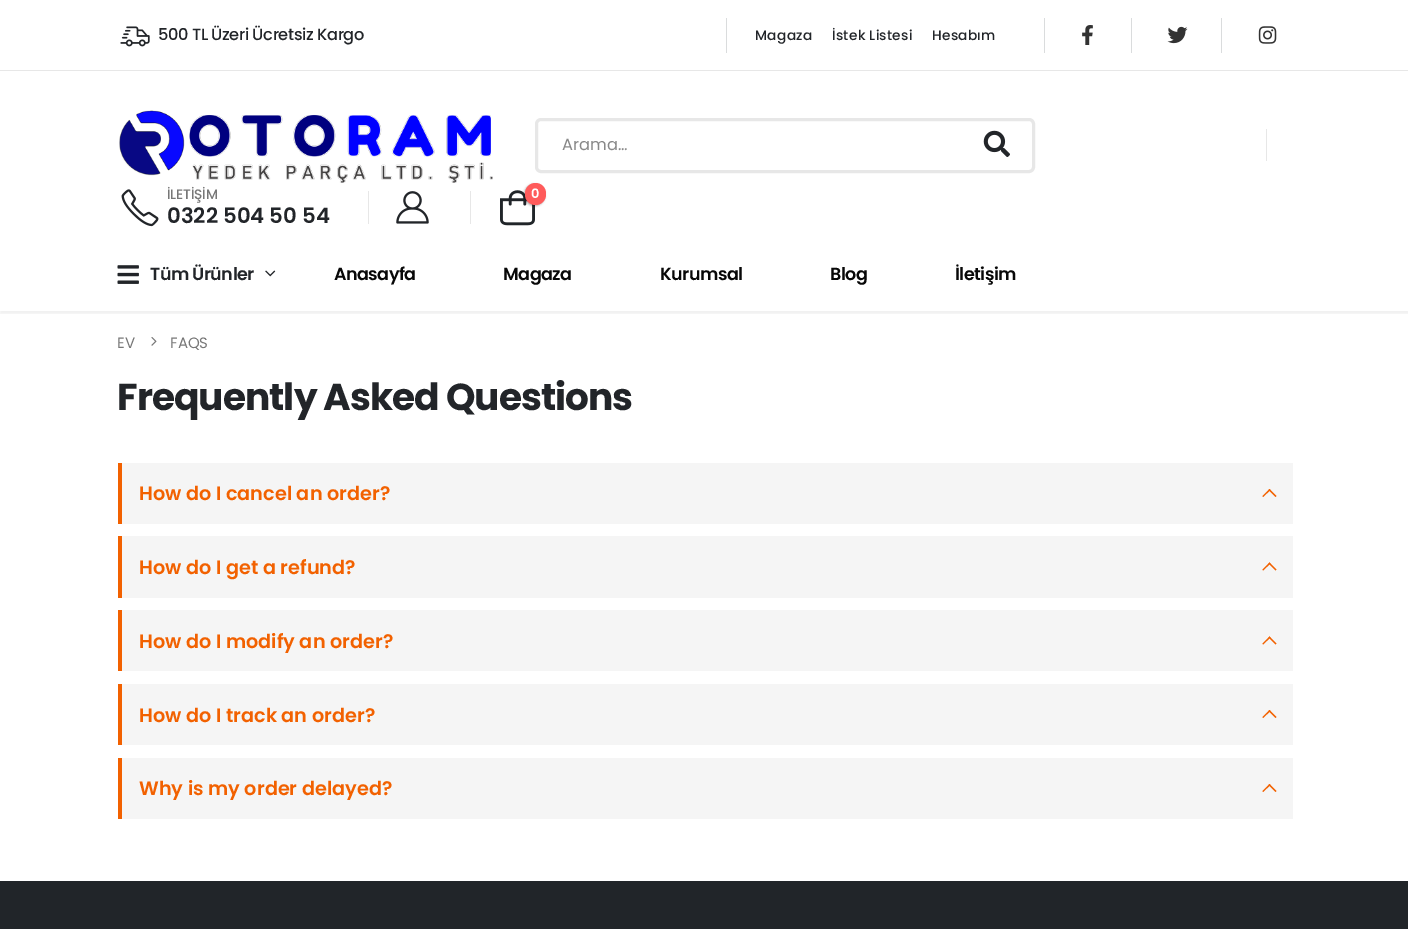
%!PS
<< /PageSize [1408 929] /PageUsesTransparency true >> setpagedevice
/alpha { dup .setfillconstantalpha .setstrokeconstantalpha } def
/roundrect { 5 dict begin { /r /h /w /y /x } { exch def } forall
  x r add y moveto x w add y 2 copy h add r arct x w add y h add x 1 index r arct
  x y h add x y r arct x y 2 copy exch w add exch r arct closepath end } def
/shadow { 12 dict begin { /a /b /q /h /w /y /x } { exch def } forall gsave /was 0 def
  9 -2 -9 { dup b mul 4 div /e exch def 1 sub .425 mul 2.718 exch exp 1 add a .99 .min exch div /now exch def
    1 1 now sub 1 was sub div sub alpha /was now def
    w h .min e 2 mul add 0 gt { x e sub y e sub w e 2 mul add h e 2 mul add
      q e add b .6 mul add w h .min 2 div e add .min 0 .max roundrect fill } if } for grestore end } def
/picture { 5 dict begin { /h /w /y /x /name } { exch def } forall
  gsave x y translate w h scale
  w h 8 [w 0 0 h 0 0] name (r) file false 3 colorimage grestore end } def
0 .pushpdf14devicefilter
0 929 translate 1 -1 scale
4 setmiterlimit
1 setgray
0 0 1408 929 rectfill
gsave
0 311 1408 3 rectclip
0 setgray
0 3 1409 311 0 1 0.06 shadow
grestore
0.906 setgray
0 70 1408 1 rectfill
(img1.rgb) 120 26 30 21 picture
/Poppins-Medium [16.25 0 0 -16.25 0 0] selectfont
0.133 0.145 0.161 setrgbcolor
158 40 moveto -0.4 0 (500 TL Üzeri Ücretsiz Kargo) ashow
0.855 0.863 0.867 setrgbcolor
726 18 1 35 rectfill
/Poppins-Medium [13.75 0 0 -13.75 0 0] selectfont
0.133 0.145 0.161 setrgbcolor
755 40 moveto 0.25 0 (Magaza) ashow
832 40 moveto 0.25 0 (İstek Listesi) ashow
932 40 moveto 0.25 0 (Hesabım) ashow
0.855 0.863 0.867 setrgbcolor
1044 18 1 35 rectfill
(img2.rgb) 1082 25 11 20 picture
1131 18 1 35 rectfill
(img3.rgb) 1167 26 21 18 picture
1221 18 1 35 rectfill
(img4.rgb) 1258 26 19 18 picture
(img5.rgb) 119 110 374 73 picture
0.906 setgray
3 setlinewidth
536.5 119.5 497 52 4.5 roundrect stroke
/Poppins-Regular [16.25 0 0 -16.25 0 0] selectfont
0.533 setgray
562 150 moveto (Arama…) show
(img6.rgb) 983 130 27 27 picture
0.906 setgray
1266 129 1 32 rectfill
(img7.rgb) 121 189 38 38 picture
/Poppins-Medium [13.75 0 0 -13.75 0 0] selectfont
0.467 setgray
167 199 moveto -0.25 0 (İLETİŞİM) ashow
/Poppins-SemiBold [21.25 0 0 -21.25 0 0] selectfont
0.133 0.145 0.161 setrgbcolor
167 223 moveto (0322 504 50 54) show
0.906 setgray
368 191 1 33 rectfill
(img8.rgb) 396 191 33 33 picture
470 191 1 33 rectfill
(img9.rgb) 500 190 35 36 picture
0 setgray
524 184 21 22 10.5 1 0.3 shadow
1 0.357 0.357 setrgbcolor
525 183 21 22 10.5 roundrect fill
/Poppins-SemiBold [13 0 0 -13 0 0] selectfont
1 setgray
531 198 moveto (0) show
(img10.rgb) 117 265 22 19 picture
/Poppins-SemiBold [17.5 0 0 -17.5 0 0] selectfont
0.133 0.145 0.161 setrgbcolor
150 280 moveto -0.5 0 (Tüm Ürünler) ashow
(img11.rgb) 265 270 11 7 picture
0.031 setgray
334 280 moveto -0.5 0 (Anasayfa) ashow
503 280 moveto -0.5 0 (Magaza) ashow
660 280 moveto -0.5 0 (Kurumsal) ashow
830 280 moveto -0.5 0 (Blog) ashow
955 280 moveto -0.5 0 (İletişim) ashow
/Poppins-Regular [15 0 0 -15 0 0] selectfont
0.467 setgray
117 348 moveto (EV) show
(img12.rgb) 151 337 6 9 picture
170 348 moveto (FAQS) show
/Poppins-Bold [37.5 0 0 -37.5 0 0] selectfont
0.133 0.145 0.161 setrgbcolor
117 410 moveto -0.95 0 (Frequently Asked Questions) ashow
0.961 setgray
122 463 1171 61 rectfill
0.949 0.38 0 setrgbcolor
118 463 4 61 rectfill
/Poppins-SemiBold [19.25 0 0 -19.25 0 0] selectfont
139 500 moveto (How do I cancel an order?) show
newpath 1262.5 496 moveto 1269.5 489 lineto 1270.5 490 lineto 1263 497 lineto closepath fill
newpath 1268.5 490 moveto 1269.5 489 lineto 1276.5 496 lineto 1275.5 497 lineto closepath fill
0.961 setgray
122 536 1171 62 rectfill
0.949 0.38 0 setrgbcolor
118 536 4 62 rectfill
139 574 moveto (How do I get a refund?) show
newpath 1262.5 569.5 moveto 1269.5 562.5 lineto 1270.5 563.5 lineto 1263 570.5 lineto closepath fill
newpath 1268.5 563.5 moveto 1269.5 562.5 lineto 1276.5 569.5 lineto 1275.5 570.5 lineto closepath fill
0.961 setgray
122 610 1171 61 rectfill
0.949 0.38 0 setrgbcolor
118 610 4 61 rectfill
139 648 moveto (How do I modify an order?) show
newpath 1262.5 643.5 moveto 1269.5 636.5 lineto 1270.5 637.5 lineto 1263 644.5 lineto closepath fill
newpath 1268.5 637.5 moveto 1269.5 636.5 lineto 1276.5 643.5 lineto 1275.5 644.5 lineto closepath fill
0.961 setgray
122 684 1171 61 rectfill
0.949 0.38 0 setrgbcolor
118 684 4 61 rectfill
139 722 moveto (How do I track an order?) show
newpath 1262.5 717 moveto 1269.5 710 lineto 1270.5 711 lineto 1263 718 lineto closepath fill
newpath 1268.5 711 moveto 1269.5 710 lineto 1276.5 717 lineto 1275.5 718 lineto closepath fill
0.961 setgray
122 758 1171 61 rectfill
0.949 0.38 0 setrgbcolor
118 758 4 61 rectfill
139 795 moveto (Why is my order delayed?) show
newpath 1262.5 791 moveto 1269.5 784 lineto 1270.5 785 lineto 1263 792 lineto closepath fill
newpath 1268.5 785 moveto 1269.5 784 lineto 1276.5 791 lineto 1275.5 792 lineto closepath fill
0.129 0.145 0.161 setrgbcolor
0 881 1408 48 rectfill
.poppdf14devicefilter showpage
